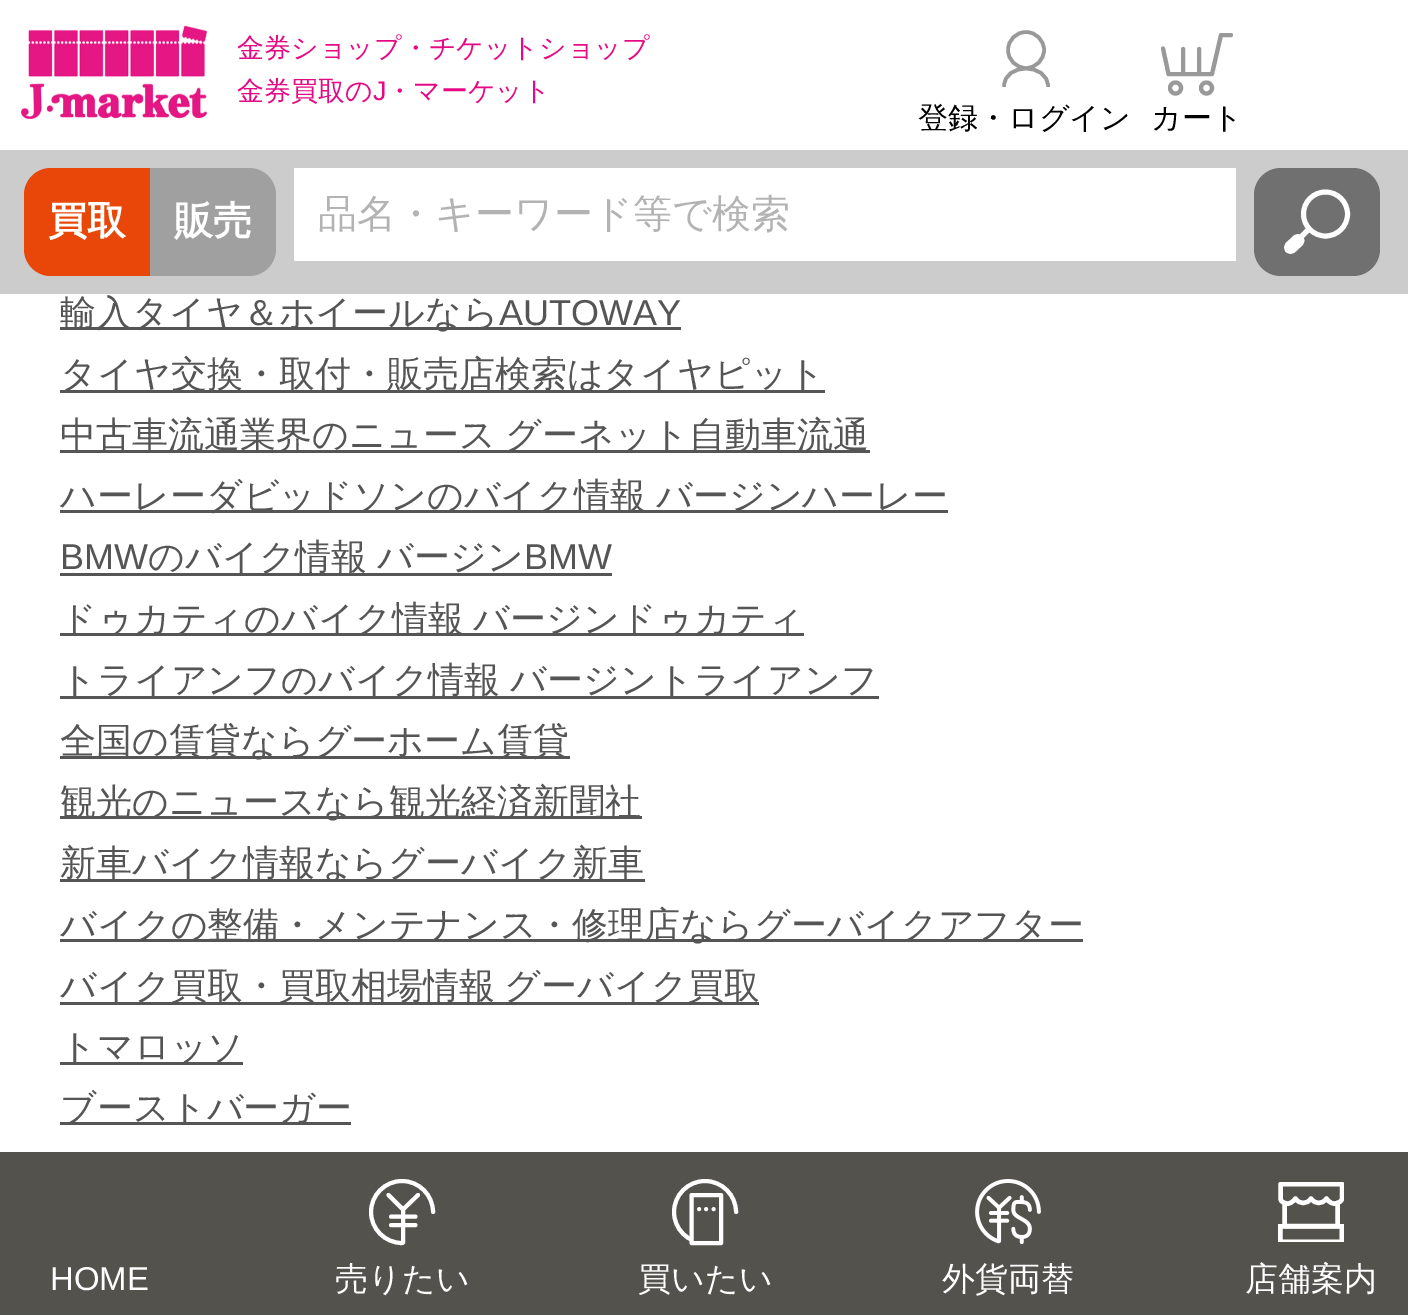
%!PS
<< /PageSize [1408 1315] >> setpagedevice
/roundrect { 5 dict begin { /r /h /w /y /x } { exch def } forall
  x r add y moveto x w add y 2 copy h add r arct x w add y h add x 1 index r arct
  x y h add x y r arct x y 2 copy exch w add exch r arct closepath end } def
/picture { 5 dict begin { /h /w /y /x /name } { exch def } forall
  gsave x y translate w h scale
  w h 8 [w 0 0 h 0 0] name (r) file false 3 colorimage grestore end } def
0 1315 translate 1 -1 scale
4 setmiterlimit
1 setgray
0 0 1408 1315 rectfill
(img1.rgb) 21 25 186 95 picture
/WenQuanYiZenHei-Medium [27 0 0 -27 0 0] selectfont
0.898 0.039 0.518 setrgbcolor
237 57 moveto (金券ショップ・チケットショップ) show
237 100 moveto (金券買取の) show
/LiberationSans-Regular [27 0 0 -27 0 0] selectfont
373 100 moveto (J) show
/WenQuanYiZenHei-Medium [27 0 0 -27 0 0] selectfont
386 100 moveto (・マーケット) show
0.6 setgray
3.6 setlinewidth
newpath 1026 50 18 0 360 arc closepath stroke
gsave
1002 30 48 57 rectclip
1 setlinecap
1 setlinejoin
newpath 1004 86.5 moveto 1004 62.5 1048 62.5 1048 86.5 curveto stroke
grestore
/WenQuanYiZenHei-Medium [30 0 0 -30 0 0] selectfont
0 setgray
918 128 moveto (登録・ログイン) show
gsave
1161 33 72 63 rectclip
0.6 setgray
4.1 setlinewidth
1 setlinecap
1 setlinejoin
newpath 1163 48.5 moveto 1168.5 74 lineto 1212 74 lineto 1221 35 lineto 1231 35 lineto stroke
grestore
0.6 setgray
4.1 setlinewidth
1 setlinecap
1 setlinejoin
newpath 1183 72 moveto 1183 49 lineto 1199 72 moveto 1199 49 lineto stroke
0 setlinecap
0 setlinejoin
newpath 1175.5 88 5.5 0 360 arc closepath stroke
newpath 1206.5 88 5.5 0 360 arc closepath stroke
0 setgray
1151 128 moveto (カート) show
0.8 setgray
0 150 1408 144 rectfill
0.914 0.278 0.035 setrgbcolor
newpath 51 168 moveto 150 168 lineto 150 276 lineto 51 276 lineto 36 276 24 264 24 249 curveto 24 195 lineto 24 180 36 168 51 168 curveto closepath fill
/WenQuanYiZenHei-Bold [39 0 0 -39 0 0] selectfont
1 setgray
48 234 moveto (買取) show
0.627 setgray
newpath 150 168 moveto 249 168 lineto 264 168 276 180 276 195 curveto 276 249 lineto 276 264 264 276 249 276 curveto 150 276 lineto closepath fill
1 setgray
174 234 moveto (販売) show
294 168 942 93 rectfill
/WenQuanYiZenHei-Medium [39 0 0 -39 0 0] selectfont
0.702 setgray
318 227 moveto (品名・キーワード等で検索) show
0.439 setgray
1254 168 126 108 27 roundrect fill
1 setgray
4.9 setlinewidth
newpath 1325.5 214 22 0 360 arc closepath stroke
5.3 setlinewidth
1 setlinecap
1 setlinejoin
newpath 1292 246 moveto 1309 229 lineto stroke
13 setlinewidth
newpath 1298 240.5 moveto 1290.5 247.5 lineto stroke
0.325 0.322 0.302 setrgbcolor
0 1152 1408 163 rectfill
/LiberationSans-Regular [33 0 0 -33 0 0] selectfont
1 setgray
50 1290 moveto (HOME) show
4 setlinewidth
newpath 418 1195 moveto 403 1209.5 lineto 388.5 1195 lineto 403 1242.5 moveto 403 1210.5 lineto 391 1216.5 moveto 415.5 1216.5 lineto 391 1225 moveto 415.5 1225 lineto stroke
newpath 402 1243 moveto 385 1243 371 1229 371 1212 curveto 371 1195 385 1181 402 1181 curveto 419 1181 433 1195 433 1212 curveto stroke
/WenQuanYiZenHei-Medium [33 0 0 -33 0 0] selectfont
335 1290 moveto (売りたい) show
newpath 691.5 1243 moveto 691.5 1195 lineto 721 1195 lineto 721 1243 lineto closepath 699 1209 moveto 699 1209 lineto stroke
[0 7.4] 0 setdash
newpath 706 1209 moveto 710 1209 lineto stroke
[] 0 setdash
newpath 713.5 1209 moveto 713.5 1209 lineto stroke
gsave
newpath 691 1220 moveto 743.5 1220 lineto 743.5 1162 lineto 665.5 1162 lineto 665.5 1248.5 lineto 691 1248.5 lineto closepath clip newpath
newpath 705 1243 moveto 688 1243 674 1229 674 1212 curveto 674 1195 688 1181 705 1181 curveto 722 1181 736 1195 736 1212 curveto stroke
grestore
638 1290 moveto (買いたい) show
(img2.rgb) 975 1179 66 66 picture
942 1290 moveto (外貨両替) show
gsave
1278 1182 66 60 rectclip
4.5 setlinewidth
0 setlinecap
0 setlinejoin
1280.25 1226.25 61.5 15.5 rectstroke
grestore
4.4 setlinewidth
newpath 1337.5 1203 moveto 1337.5 1226 lineto 1284.5 1226 lineto 1284.5 1203 lineto stroke
gsave
1278 1182 66 60 rectclip
newpath 1326.5 1198.5 moveto 1322.5 1204.5 1315 1204.5 1311 1198.5 curveto 1307.5 1204.5 1299 1204.5 1295.5 1198.5 curveto 1295.5 1198.5 1292 1203.5 1288 1203.5 curveto 1284 1203.5 1280.5 1201.5 1280.5 1198.5 curveto 1280.5 1184 lineto 1342 1184 lineto 1342 1198.5 lineto 1342 1201 1338.5 1203.5 1334 1203.5 curveto 1329.5 1203.5 1326.5 1198.5 1326.5 1198.5 curveto stroke
grestore
1245 1290 moveto (店舗案内) show
0.333 setgray
60 327 621 3 rectfill
/WenQuanYiZenHei-Medium [36 0 0 -36 0 0] selectfont
60 325 moveto (輸入タイヤ＆ホイールなら) show
/LiberationSans-Regular [36 0 0 -36 0 0] selectfont
499 325 moveto (AUTOWAY) show
60 390 765 3 rectfill
/WenQuanYiZenHei-Medium [36 0 0 -36 0 0] selectfont
60 386 moveto (タイヤ交換・取付・販売店検索はタイヤピット) show
60 450 810 3 rectfill
60 447 moveto -1 0 32 (中古車流通業界のニュース グーネット自動車流通) widthshow
60 510 888 3 rectfill
60 508 moveto -1 0 32 (ハーレーダビッドソンのバイク情報 バージンハーレー) widthshow
/LiberationSans-Regular [36 0 0 -36 0 0] selectfont
60 569 moveto (BMW) show
60 573 552 3 rectfill
/WenQuanYiZenHei-Medium [36 0 0 -36 0 0] selectfont
148 569 moveto -1 0 32 (のバイク情報 バージン) widthshow
/LiberationSans-Regular [36 0 0 -36 0 0] selectfont
524 569 moveto (BMW) show
60 633 744 3 rectfill
/WenQuanYiZenHei-Medium [36 0 0 -36 0 0] selectfont
60 631 moveto -1 0 32 (ドゥカティのバイク情報 バージンドゥカティ) widthshow
60 696 819 3 rectfill
60 692 moveto -1 0 32 (トライアンフのバイク情報 バージントライアンフ) widthshow
60 756 510 3 rectfill
60 753 moveto (全国の賃貸ならグーホーム賃貸) show
60 816 582 3 rectfill
60 814 moveto (観光のニュースなら観光経済新聞社) show
60 879 585 3 rectfill
60 875 moveto (新車バイク情報ならグーバイク新車) show
60 939 1023 3 rectfill
60 937 moveto (バイクの整備・メンテナンス・修理店ならグーバイクアフター) show
60 1002 699 3 rectfill
60 998 moveto -1 0 32 (バイク買取・買取相場情報 グーバイク買取) widthshow
60 1062 183 3 rectfill
60 1059 moveto (トマロッソ) show
60 1122 291 3 rectfill
60 1120 moveto (ブーストバーガー) show
showpage
